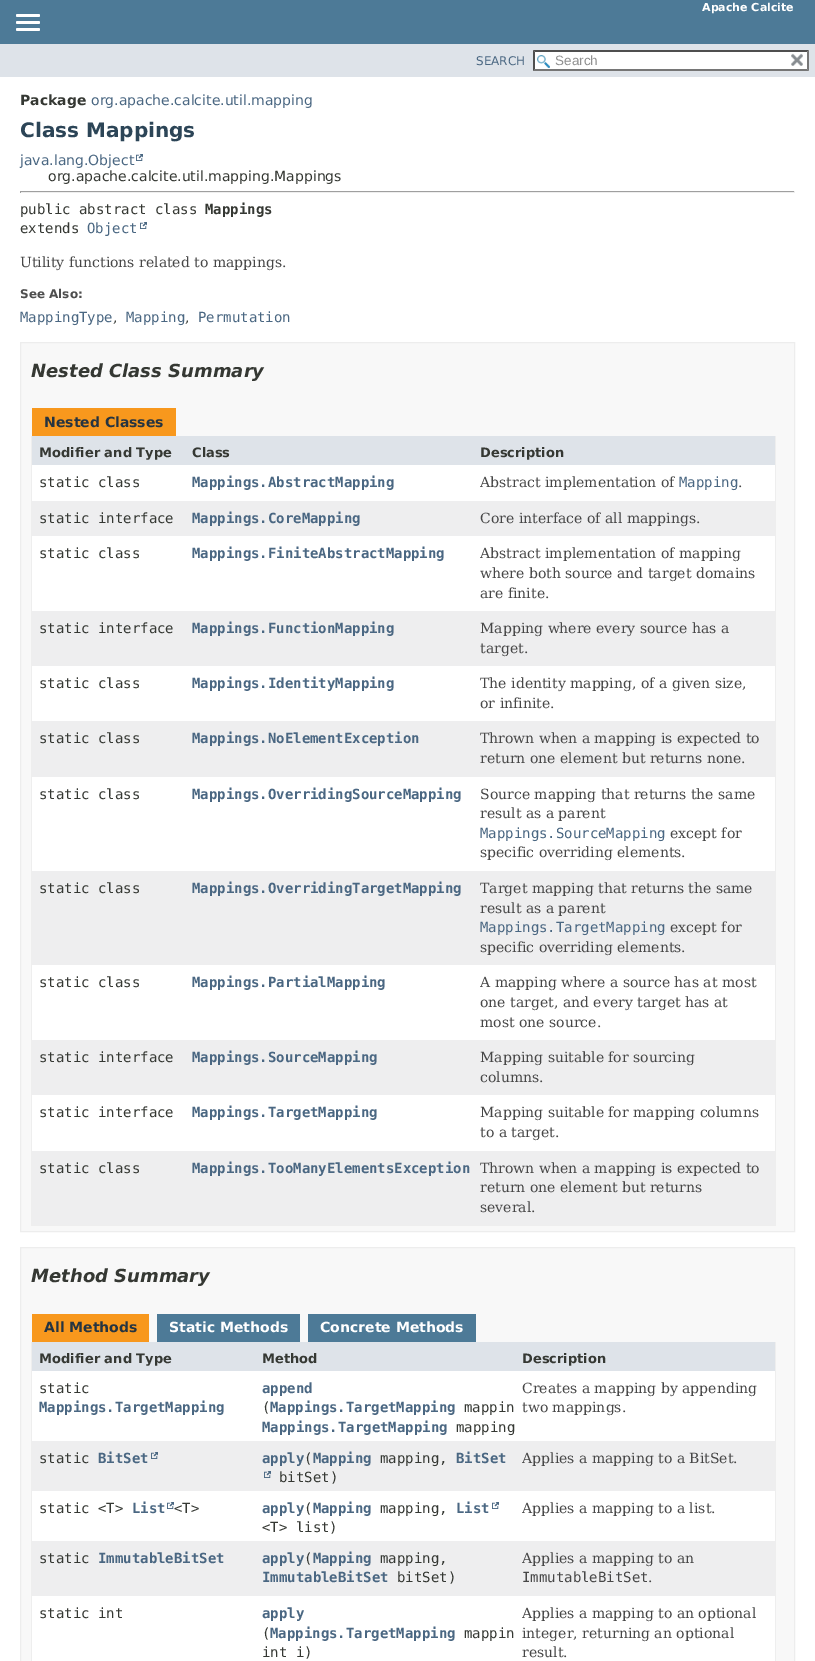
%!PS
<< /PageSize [815 1661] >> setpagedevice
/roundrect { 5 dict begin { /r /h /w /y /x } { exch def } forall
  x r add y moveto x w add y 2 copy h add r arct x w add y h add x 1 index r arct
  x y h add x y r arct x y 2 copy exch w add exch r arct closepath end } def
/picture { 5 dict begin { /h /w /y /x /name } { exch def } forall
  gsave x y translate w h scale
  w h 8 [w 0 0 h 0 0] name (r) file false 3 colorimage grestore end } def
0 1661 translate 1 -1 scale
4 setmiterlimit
1 setgray
0 0 815 1661 rectfill
0.302 0.478 0.592 setrgbcolor
0 0 815 44 rectfill
/DejaVuSans-Bold [11 0 0 -11 0 0] selectfont
1 setgray
702 11 moveto (Apache Calcite) show
16 14 24 3 1.5 roundrect fill
16 21 24 3 1.5 roundrect fill
16 28 24 3 1.5 roundrect fill
0.871 0.89 0.914 setrgbcolor
0 44 815 33 rectfill
/DejaVuSans-Regular [12 0 0 -12 0 0] selectfont
0.29 0.404 0.51 setrgbcolor
476 65 moveto (SEARCH) show
1 setgray
533 50 276 21 rectfill
(img1.rgb) 537 55 13 13 picture
0.31 setgray
newpath 533 50 moveto 809 50 lineto 807 52 lineto 535 52 lineto closepath fill
0.463 setgray
newpath 809 50 moveto 809 71 lineto 807 69 lineto 807 52 lineto closepath fill
newpath 809 71 moveto 533 71 lineto 535 69 lineto 807 69 lineto closepath fill
0.31 setgray
newpath 533 71 moveto 533 50 lineto 535 52 lineto 535 69 lineto closepath fill
/LiberationSans-Regular [13.5 0 0 -13.5 0 0] selectfont
0.565 setgray
555 65 moveto (Search) show
(img2.rgb) 791 53 12 13 picture
/DejaVuSans-Bold [14 0 0 -14 0 0] selectfont
0.208 0.22 0.2 setrgbcolor
20 105 moveto (Package) show
/DejaVuSans-Regular [14 0 0 -14 0 0] selectfont
0.29 0.404 0.51 setrgbcolor
91 105 moveto (org.apache.calcite.util.mapping) show
/DejaVuSans-Bold [20 0 0 -20 0 0] selectfont
0.173 0.271 0.341 setrgbcolor
20 137 moveto (Class Mappings) show
/DejaVuSans-Regular [14 0 0 -14 0 0] selectfont
0.29 0.404 0.51 setrgbcolor
20 165 moveto (java.lang.Object) show
(img3.rgb) 136 154 7 7 picture
0.208 0.22 0.2 setrgbcolor
48 181 moveto (org.apache.calcite.util.mapping.Mappings) show
0.624 setgray
20 191 775 1 rectfill
0.933 setgray
794 191 1 2 rectfill
20 192 775 1 rectfill
0.624 setgray
20 191 1 2 rectfill
/DejaVuSansMono-Regular [14 0 0 -14 0 0] selectfont
0.208 0.22 0.2 setrgbcolor
20 214 moveto (public abstract class) show
/DejaVuSansMono-Bold [14 0 0 -14 0 0] selectfont
205 214 moveto (Mappings) show
/DejaVuSansMono-Regular [14 0 0 -14 0 0] selectfont
20 233 moveto (extends) show
0.29 0.404 0.51 setrgbcolor
87 233 moveto (Object) show
(img3.rgb) 140 222 7 7 picture
/DejaVuSerif-Regular [14 0 0 -14 0 0] selectfont
0.278 setgray
20 267 moveto (Utility functions related to mappings.) show
/DejaVuSans-Bold [12 0 0 -12 0 0] selectfont
0.306 setgray
20 298 moveto (See Also:) show
/DejaVuSansMono-Regular [14 0 0 -14 0 0] selectfont
0.29 0.404 0.51 setrgbcolor
20 322 moveto (MappingType) show
/DejaVuSerif-Regular [14 0 0 -14 0 0] selectfont
0.208 0.22 0.2 setrgbcolor
113 322 moveto (,) show
/DejaVuSansMono-Regular [14 0 0 -14 0 0] selectfont
0.29 0.404 0.51 setrgbcolor
126 322 moveto (Mapping) show
/DejaVuSerif-Regular [14 0 0 -14 0 0] selectfont
0.208 0.22 0.2 setrgbcolor
185 322 moveto (,) show
/DejaVuSansMono-Regular [14 0 0 -14 0 0] selectfont
0.29 0.404 0.51 setrgbcolor
198 322 moveto (Permutation) show
0.973 setgray
newpath 20.5 342.5 moveto 794.5 342.5 lineto 794.5 1231.5 lineto 20.5 1231.5 lineto closepath gsave fill grestore
0.929 setgray
stroke
/DejaVuSans-BoldItalic [18 0 0 -18 0 0] selectfont
0.208 0.22 0.2 setrgbcolor
31 377 moveto (Nested Class Summary) show
0.973 0.596 0.114 setrgbcolor
32 408 144 28 rectfill
/DejaVuSans-Bold [14 0 0 -14 0 0] selectfont
0.145 0.204 0.255 setrgbcolor
44 427 moveto (Nested Classes) show
0.933 setgray
775 436 1 790 rectfill
31 1225 745 1 rectfill
31 436 1 790 rectfill
0.871 0.89 0.914 setrgbcolor
32 436 743 29 rectfill
/DejaVuSans-Bold [13 0 0 -13 0 0] selectfont
0.208 0.22 0.2 setrgbcolor
39 457 moveto (Modifier and Type) show
192 457 moveto (Class) show
480 457 moveto (Description) show
1 setgray
32 465 743 36 rectfill
/DejaVuSansMono-Regular [14 0 0 -14 0 0] selectfont
0.208 0.22 0.2 setrgbcolor
39 487 moveto (static class) show
/DejaVuSansMono-Bold [14 0 0 -14 0 0] selectfont
0.29 0.404 0.51 setrgbcolor
192 487 moveto (Mappings.AbstractMapping) show
/DejaVuSerif-Regular [14 0 0 -14 0 0] selectfont
0.278 setgray
480 487 moveto (Abstract implementation of) show
/DejaVuSansMono-Regular [14 0 0 -14 0 0] selectfont
0.29 0.404 0.51 setrgbcolor
679 487 moveto (Mapping) show
/DejaVuSerif-Regular [14 0 0 -14 0 0] selectfont
0.278 setgray
738 487 moveto (.) show
0.933 0.933 0.937 setrgbcolor
32 501 743 35 rectfill
/DejaVuSansMono-Regular [14 0 0 -14 0 0] selectfont
0.208 0.22 0.2 setrgbcolor
39 523 moveto (static interface) show
/DejaVuSansMono-Bold [14 0 0 -14 0 0] selectfont
0.29 0.404 0.51 setrgbcolor
192 523 moveto (Mappings.CoreMapping) show
/DejaVuSerif-Regular [14 0 0 -14 0 0] selectfont
0.278 setgray
480 523 moveto (Core interface of all mappings.) show
1 setgray
32 536 743 75 rectfill
/DejaVuSansMono-Regular [14 0 0 -14 0 0] selectfont
0.208 0.22 0.2 setrgbcolor
39 558 moveto (static class) show
/DejaVuSansMono-Bold [14 0 0 -14 0 0] selectfont
0.29 0.404 0.51 setrgbcolor
192 558 moveto (Mappings.FiniteAbstractMapping) show
/DejaVuSerif-Regular [14 0 0 -14 0 0] selectfont
0.278 setgray
480 558 moveto (Abstract implementation of mapping) show
480 578 moveto (where both source and target domains) show
480 598 moveto (are finite.) show
0.933 0.933 0.937 setrgbcolor
32 611 743 55 rectfill
/DejaVuSansMono-Regular [14 0 0 -14 0 0] selectfont
0.208 0.22 0.2 setrgbcolor
39 633 moveto (static interface) show
/DejaVuSansMono-Bold [14 0 0 -14 0 0] selectfont
0.29 0.404 0.51 setrgbcolor
192 633 moveto (Mappings.FunctionMapping) show
/DejaVuSerif-Regular [14 0 0 -14 0 0] selectfont
0.278 setgray
480 633 moveto (Mapping where every source has a) show
480 653 moveto (target.) show
1 setgray
32 666 743 55 rectfill
/DejaVuSansMono-Regular [14 0 0 -14 0 0] selectfont
0.208 0.22 0.2 setrgbcolor
39 688 moveto (static class) show
/DejaVuSansMono-Bold [14 0 0 -14 0 0] selectfont
0.29 0.404 0.51 setrgbcolor
192 688 moveto (Mappings.IdentityMapping) show
/DejaVuSerif-Regular [14 0 0 -14 0 0] selectfont
0.278 setgray
480 688 moveto (The identity mapping, of a given size,) show
480 708 moveto (or infinite.) show
0.933 0.933 0.937 setrgbcolor
32 721 743 56 rectfill
/DejaVuSansMono-Regular [14 0 0 -14 0 0] selectfont
0.208 0.22 0.2 setrgbcolor
39 743 moveto (static class) show
/DejaVuSansMono-Bold [14 0 0 -14 0 0] selectfont
0.29 0.404 0.51 setrgbcolor
192 743 moveto (Mappings.NoElementException) show
/DejaVuSerif-Regular [14 0 0 -14 0 0] selectfont
0.278 setgray
480 743 moveto (Thrown when a mapping is expected to) show
480 763 moveto (return one element but returns none.) show
1 setgray
32 777 743 94 rectfill
/DejaVuSansMono-Regular [14 0 0 -14 0 0] selectfont
0.208 0.22 0.2 setrgbcolor
39 799 moveto (static class) show
/DejaVuSansMono-Bold [14 0 0 -14 0 0] selectfont
0.29 0.404 0.51 setrgbcolor
192 799 moveto (Mappings.OverridingSourceMapping) show
/DejaVuSerif-Regular [14 0 0 -14 0 0] selectfont
0.278 setgray
480 799 moveto (Source mapping that returns the same) show
480 818 moveto (result as a parent) show
/DejaVuSansMono-Regular [14 0 0 -14 0 0] selectfont
0.29 0.404 0.51 setrgbcolor
480 838 moveto (Mappings.SourceMapping) show
/DejaVuSerif-Regular [14 0 0 -14 0 0] selectfont
0.278 setgray
670 838 moveto (except for) show
480 857 moveto (specific overriding elements.) show
0.933 0.933 0.937 setrgbcolor
32 871 743 94 rectfill
/DejaVuSansMono-Regular [14 0 0 -14 0 0] selectfont
0.208 0.22 0.2 setrgbcolor
39 893 moveto (static class) show
/DejaVuSansMono-Bold [14 0 0 -14 0 0] selectfont
0.29 0.404 0.51 setrgbcolor
192 893 moveto (Mappings.OverridingTargetMapping) show
/DejaVuSerif-Regular [14 0 0 -14 0 0] selectfont
0.278 setgray
480 893 moveto (Target mapping that returns the same) show
480 913 moveto (result as a parent) show
/DejaVuSansMono-Regular [14 0 0 -14 0 0] selectfont
0.29 0.404 0.51 setrgbcolor
480 932 moveto (Mappings.TargetMapping) show
/DejaVuSerif-Regular [14 0 0 -14 0 0] selectfont
0.278 setgray
670 932 moveto (except for) show
480 952 moveto (specific overriding elements.) show
1 setgray
32 965 743 75 rectfill
/DejaVuSansMono-Regular [14 0 0 -14 0 0] selectfont
0.208 0.22 0.2 setrgbcolor
39 987 moveto (static class) show
/DejaVuSansMono-Bold [14 0 0 -14 0 0] selectfont
0.29 0.404 0.51 setrgbcolor
192 987 moveto (Mappings.PartialMapping) show
/DejaVuSerif-Regular [14 0 0 -14 0 0] selectfont
0.278 setgray
480 987 moveto (A mapping where a source has at most) show
480 1007 moveto (one target, and every target has at) show
480 1027 moveto (most one source.) show
0.933 0.933 0.937 setrgbcolor
32 1040 743 55 rectfill
/DejaVuSansMono-Regular [14 0 0 -14 0 0] selectfont
0.208 0.22 0.2 setrgbcolor
39 1062 moveto (static interface) show
/DejaVuSansMono-Bold [14 0 0 -14 0 0] selectfont
0.29 0.404 0.51 setrgbcolor
192 1062 moveto (Mappings.SourceMapping) show
/DejaVuSerif-Regular [14 0 0 -14 0 0] selectfont
0.278 setgray
480 1062 moveto (Mapping suitable for sourcing) show
480 1082 moveto (columns.) show
1 setgray
32 1095 743 56 rectfill
/DejaVuSansMono-Regular [14 0 0 -14 0 0] selectfont
0.208 0.22 0.2 setrgbcolor
39 1117 moveto (static interface) show
/DejaVuSansMono-Bold [14 0 0 -14 0 0] selectfont
0.29 0.404 0.51 setrgbcolor
192 1117 moveto (Mappings.TargetMapping) show
/DejaVuSerif-Regular [14 0 0 -14 0 0] selectfont
0.278 setgray
480 1117 moveto (Mapping suitable for mapping columns) show
480 1137 moveto (to a target.) show
0.933 0.933 0.937 setrgbcolor
32 1151 743 74 rectfill
/DejaVuSansMono-Regular [14 0 0 -14 0 0] selectfont
0.208 0.22 0.2 setrgbcolor
39 1173 moveto (static class) show
/DejaVuSansMono-Bold [14 0 0 -14 0 0] selectfont
0.29 0.404 0.51 setrgbcolor
192 1173 moveto (Mappings.TooManyElementsException) show
/DejaVuSerif-Regular [14 0 0 -14 0 0] selectfont
0.278 setgray
480 1173 moveto (Thrown when a mapping is expected to) show
480 1192 moveto (return one element but returns) show
480 1212 moveto (several.) show
0.973 setgray
newpath 20.5 1247.5 moveto 794.5 1247.5 lineto 794.5 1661.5 lineto 20.5 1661.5 lineto closepath gsave fill grestore
0.929 setgray
stroke
/DejaVuSans-BoldItalic [18 0 0 -18 0 0] selectfont
0.208 0.22 0.2 setrgbcolor
31 1282 moveto (Method Summary) show
0.973 0.596 0.114 setrgbcolor
32 1314 117 28 rectfill
/DejaVuSans-Bold [14 0 0 -14 0 0] selectfont
0.145 0.204 0.255 setrgbcolor
44 1332 moveto (All Methods) show
0.302 0.478 0.592 setrgbcolor
157 1314 143 28 rectfill
1 setgray
169 1332 moveto (Static Methods) show
0.302 0.478 0.592 setrgbcolor
308 1314 168 28 rectfill
1 setgray
320 1332 moveto (Concrete Methods) show
0.933 setgray
775 1342 1 319 rectfill
31 1342 1 319 rectfill
0.871 0.89 0.914 setrgbcolor
32 1342 743 29 rectfill
/DejaVuSans-Bold [13 0 0 -13 0 0] selectfont
0.208 0.22 0.2 setrgbcolor
39 1363 moveto (Modifier and Type) show
262 1363 moveto (Method) show
522 1363 moveto (Description) show
1 setgray
32 1371 743 70 rectfill
/DejaVuSansMono-Regular [14 0 0 -14 0 0] selectfont
0.208 0.22 0.2 setrgbcolor
39 1393 moveto (static) show
/DejaVuSansMono-Bold [14 0 0 -14 0 0] selectfont
0.29 0.404 0.51 setrgbcolor
39 1412 moveto (Mappings.TargetMapping) show
262 1393 moveto (append) show
/DejaVuSansMono-Regular [14 0 0 -14 0 0] selectfont
0.208 0.22 0.2 setrgbcolor
262 1412 moveto (\() show
/DejaVuSansMono-Bold [14 0 0 -14 0 0] selectfont
0.29 0.404 0.51 setrgbcolor
270 1412 moveto (Mappings.TargetMapping) show
/DejaVuSansMono-Regular [14 0 0 -14 0 0] selectfont
0.208 0.22 0.2 setrgbcolor
464 1412 moveto (mappin) show
/DejaVuSansMono-Bold [14 0 0 -14 0 0] selectfont
0.29 0.404 0.51 setrgbcolor
262 1432 moveto (Mappings.TargetMapping) show
/DejaVuSansMono-Regular [14 0 0 -14 0 0] selectfont
0.208 0.22 0.2 setrgbcolor
456 1432 moveto (mapping) show
/DejaVuSerif-Regular [14 0 0 -14 0 0] selectfont
0.278 setgray
522 1393 moveto (Creates a mapping by appending) show
522 1412 moveto (two mappings.) show
0.933 0.933 0.937 setrgbcolor
32 1441 743 50 rectfill
/DejaVuSansMono-Regular [14 0 0 -14 0 0] selectfont
0.208 0.22 0.2 setrgbcolor
39 1463 moveto (static) show
/DejaVuSansMono-Bold [14 0 0 -14 0 0] selectfont
0.29 0.404 0.51 setrgbcolor
98 1463 moveto (BitSet) show
(img4.rgb) 151 1452 7 7 picture
262 1463 moveto (apply Mapping) show
456 1463 moveto (BitSet) show
(img4.rgb) 264 1471 7 7 picture
/DejaVuSansMono-Regular [14 0 0 -14 0 0] selectfont
0.208 0.22 0.2 setrgbcolor
304 1463 moveto (\() show
380 1463 moveto (mapping,) show
279 1482 moveto (bitSet\)) show
/DejaVuSerif-Regular [14 0 0 -14 0 0] selectfont
0.278 setgray
522 1463 moveto (Applies a mapping to a BitSet.) show
1 setgray
32 1491 743 50 rectfill
/DejaVuSansMono-Regular [14 0 0 -14 0 0] selectfont
0.208 0.22 0.2 setrgbcolor
39 1513 moveto (static <T>) show
/DejaVuSansMono-Bold [14 0 0 -14 0 0] selectfont
0.29 0.404 0.51 setrgbcolor
132 1513 moveto (List) show
(img3.rgb) 167 1502 7 7 picture
/DejaVuSansMono-Regular [14 0 0 -14 0 0] selectfont
0.208 0.22 0.2 setrgbcolor
174 1513 moveto (<T>) show
/DejaVuSansMono-Bold [14 0 0 -14 0 0] selectfont
0.29 0.404 0.51 setrgbcolor
262 1513 moveto (apply Mapping) show
456 1513 moveto (List) show
(img3.rgb) 492 1502 7 7 picture
/DejaVuSansMono-Regular [14 0 0 -14 0 0] selectfont
0.208 0.22 0.2 setrgbcolor
304 1513 moveto (\() show
380 1513 moveto (mapping,) show
262 1532 moveto (<T> list\)) show
/DejaVuSerif-Regular [14 0 0 -14 0 0] selectfont
0.278 setgray
522 1513 moveto (Applies a mapping to a list.) show
0.933 0.933 0.937 setrgbcolor
32 1541 743 55 rectfill
/DejaVuSansMono-Regular [14 0 0 -14 0 0] selectfont
0.208 0.22 0.2 setrgbcolor
39 1563 moveto (static) show
/DejaVuSansMono-Bold [14 0 0 -14 0 0] selectfont
0.29 0.404 0.51 setrgbcolor
98 1563 moveto (ImmutableBitSet) show
262 1563 moveto (apply Mapping) show
/DejaVuSansMono-Regular [14 0 0 -14 0 0] selectfont
0.208 0.22 0.2 setrgbcolor
304 1563 moveto (\() show
380 1563 moveto (mapping,) show
/DejaVuSansMono-Bold [14 0 0 -14 0 0] selectfont
0.29 0.404 0.51 setrgbcolor
262 1582 moveto (ImmutableBitSet) show
/DejaVuSansMono-Regular [14 0 0 -14 0 0] selectfont
0.208 0.22 0.2 setrgbcolor
397 1582 moveto (bitSet\)) show
/DejaVuSerif-Regular [14 0 0 -14 0 0] selectfont
0.278 setgray
522 1563 moveto (Applies a mapping to an) show
/DejaVuSansMono-Regular [14 0 0 -14 0 0] selectfont
522 1582 moveto (ImmutableBitSet) show
/DejaVuSerif-Regular [14 0 0 -14 0 0] selectfont
648 1582 moveto (.) show
1 setgray
32 1596 743 65 rectfill
/DejaVuSansMono-Regular [14 0 0 -14 0 0] selectfont
0.208 0.22 0.2 setrgbcolor
39 1618 moveto (static int) show
/DejaVuSansMono-Bold [14 0 0 -14 0 0] selectfont
0.29 0.404 0.51 setrgbcolor
262 1618 moveto (apply) show
/DejaVuSansMono-Regular [14 0 0 -14 0 0] selectfont
0.208 0.22 0.2 setrgbcolor
262 1638 moveto (\() show
/DejaVuSansMono-Bold [14 0 0 -14 0 0] selectfont
0.29 0.404 0.51 setrgbcolor
270 1638 moveto (Mappings.TargetMapping) show
/DejaVuSansMono-Regular [14 0 0 -14 0 0] selectfont
0.208 0.22 0.2 setrgbcolor
464 1638 moveto (mappin) show
262 1657 moveto (int i\)) show
/DejaVuSerif-Regular [14 0 0 -14 0 0] selectfont
0.278 setgray
522 1618 moveto (Applies a mapping to an optional) show
522 1638 moveto (integer, returning an optional) show
522 1657 moveto (result.) show
showpage
